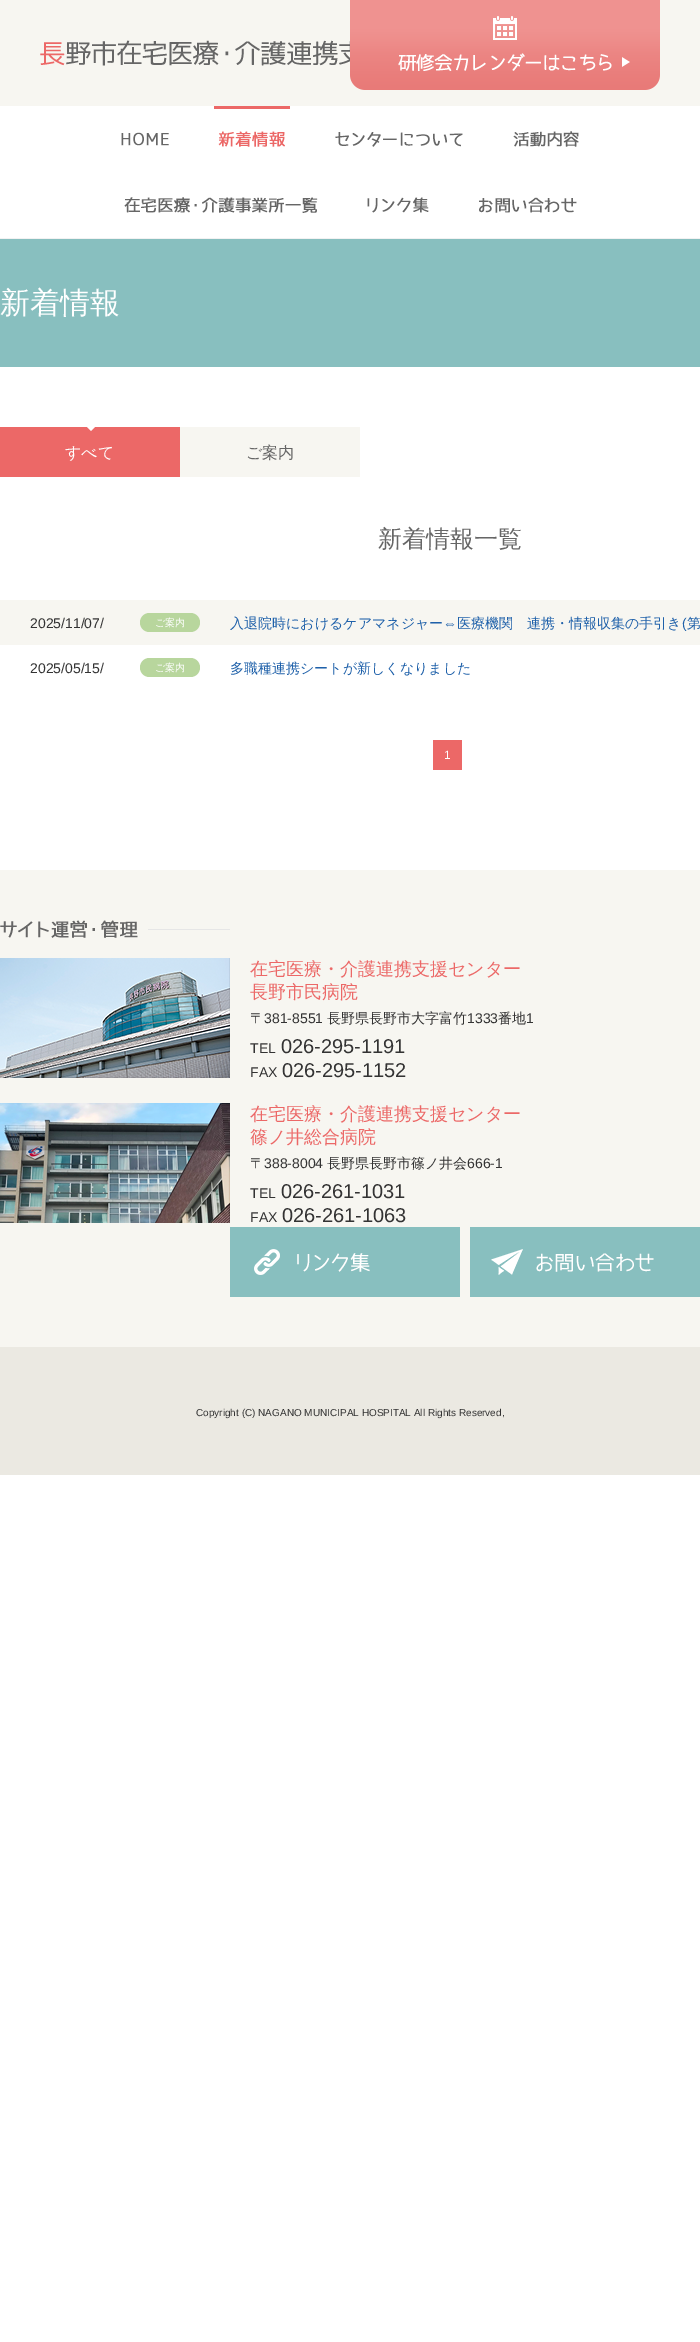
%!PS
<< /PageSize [700 2342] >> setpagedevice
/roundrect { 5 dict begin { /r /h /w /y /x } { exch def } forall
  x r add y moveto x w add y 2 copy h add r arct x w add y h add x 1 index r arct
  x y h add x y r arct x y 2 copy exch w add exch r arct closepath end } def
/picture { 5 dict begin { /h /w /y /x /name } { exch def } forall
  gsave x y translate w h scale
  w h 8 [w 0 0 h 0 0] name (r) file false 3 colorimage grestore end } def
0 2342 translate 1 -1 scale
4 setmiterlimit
1 setgray
0 0 700 2342 rectfill
0.969 0.965 0.945 setrgbcolor
0 0 700 106 rectfill
(img1.rgb) 40 40 310 26 picture
(img2.rgb) 350 0 310 90 picture
0.949 setgray
0 238 700 1 rectfill
(img3.rgb) 121 132 48 14 picture
(img4.rgb) 214 106 76 41 picture
(img5.rgb) 335 132 128 15 picture
(img6.rgb) 513 131 66 16 picture
(img7.rgb) 124 197 194 16 picture
(img8.rgb) 367 197 62 16 picture
(img9.rgb) 479 197 98 16 picture
0.533 0.749 0.749 setrgbcolor
0 239 700 128 rectfill
/WenQuanYiZenHei-Medium [30 0 0 -30 0 0] selectfont
1 setgray
0 313 moveto (新着情報) show
0.925 0.408 0.404 setrgbcolor
0 427 180 50 rectfill
1 setgray
newpath 87 427 moveto 95 427 lineto 91 431 lineto closepath fill
/WenQuanYiZenHei-Medium [16 0 0 -16 0 0] selectfont
65 458 moveto (すべて) show
0.969 0.965 0.945 setrgbcolor
180 427 180 50 rectfill
0.4 setgray
246 458 moveto (ご案内) show
/WenQuanYiZenHei-Medium [24 0 0 -24 0 0] selectfont
378 547 moveto (新着情報一覧) show
0.969 0.965 0.945 setrgbcolor
0 600 700 45 rectfill
/LiberationSans-Regular [14 0 0 -14 0 0] selectfont
0.2 setgray
30 628 moveto (2025/11/07/) show
0.722 0.839 0.616 setrgbcolor
140 613 60 19 9.5 roundrect fill
/WenQuanYiZenHei-Medium [10 0 0 -10 0 0] selectfont
1 setgray
155 626 moveto (ご案内) show
/WenQuanYiZenHei-Medium [14 0 0 -14 0 0] selectfont
0.122 0.38 0.667 setrgbcolor
230 628 moveto (入退院時におけるケアマネジャー) show
/LiberationSans-Regular [14 0 0 -14 0 0] selectfont
443 628 moveto (⇔) show
/WenQuanYiZenHei-Medium [14 0 0 -14 0 0] selectfont
457 628 moveto (医療機関　連携・情報収集の手引き) show
/LiberationSans-Regular [14 0 0 -14 0 0] selectfont
682 628 moveto (\() show
/WenQuanYiZenHei-Medium [14 0 0 -14 0 0] selectfont
687 628 moveto (第) show
/LiberationSans-Regular [14 0 0 -14 0 0] selectfont
0.2 setgray
30 673 moveto (2025/05/15/) show
0.722 0.839 0.616 setrgbcolor
140 658 60 19 9.5 roundrect fill
/WenQuanYiZenHei-Medium [10 0 0 -10 0 0] selectfont
1 setgray
155 671 moveto (ご案内) show
/WenQuanYiZenHei-Medium [14 0 0 -14 0 0] selectfont
0.122 0.38 0.667 setrgbcolor
230 673 moveto (多職種連携シートが新しくなりました) show
0.925 0.408 0.404 setrgbcolor
433 740 29 30 rectfill
/LiberationSans-Regular [12 0 0 -12 0 0] selectfont
1 setgray
444 759 moveto (1) show
0.969 0.965 0.945 setrgbcolor
0 870 700 477 rectfill
(img10.rgb) 0 920 230 18 picture
(img11.rgb) 0 958 230 120 picture
/WenQuanYiZenHei-Medium [18 0 0 -18 0 0] selectfont
0.925 0.408 0.404 setrgbcolor
250 975 moveto (在宅医療・介護連携支援センター) show
250 998 moveto (長野市民病院) show
/WenQuanYiZenHei-Medium [14 0 0 -14 0 0] selectfont
0.2 setgray
250 1023 moveto (〒) show
/LiberationSans-Regular [14 0 0 -14 0 0] selectfont
264 1023 moveto (381-8551) show
/WenQuanYiZenHei-Medium [14 0 0 -14 0 0] selectfont
327 1023 moveto (長野県長野市大字富竹) show
/LiberationSans-Regular [14 0 0 -14 0 0] selectfont
467 1023 moveto (1333) show
/WenQuanYiZenHei-Medium [14 0 0 -14 0 0] selectfont
498 1023 moveto (番地) show
/LiberationSans-Regular [14 0 0 -14 0 0] selectfont
526 1023 moveto (1) show
250 1053 moveto (TEL) show
/LiberationSans-Regular [20 0 0 -20 0 0] selectfont
281 1053 moveto (026-295-1191) show
/LiberationSans-Regular [14 0 0 -14 0 0] selectfont
250 1077 moveto (FAX) show
/LiberationSans-Regular [20 0 0 -20 0 0] selectfont
282 1077 moveto (026-295-1152) show
(img12.rgb) 0 1103 230 120 picture
/WenQuanYiZenHei-Medium [18 0 0 -18 0 0] selectfont
0.925 0.408 0.404 setrgbcolor
250 1120 moveto (在宅医療・介護連携支援センター) show
250 1143 moveto (篠ノ井総合病院) show
/WenQuanYiZenHei-Medium [14 0 0 -14 0 0] selectfont
0.2 setgray
250 1168 moveto (〒) show
/LiberationSans-Regular [14 0 0 -14 0 0] selectfont
264 1168 moveto (388-8004) show
/WenQuanYiZenHei-Medium [14 0 0 -14 0 0] selectfont
327 1168 moveto (長野県長野市篠ノ井会) show
/LiberationSans-Regular [14 0 0 -14 0 0] selectfont
467 1168 moveto (666-1) show
250 1198 moveto (TEL) show
/LiberationSans-Regular [20 0 0 -20 0 0] selectfont
281 1198 moveto (026-261-1031) show
/LiberationSans-Regular [14 0 0 -14 0 0] selectfont
250 1222 moveto (FAX) show
/LiberationSans-Regular [20 0 0 -20 0 0] selectfont
282 1222 moveto (026-261-1063) show
(img13.rgb) 230 1227 230 70 picture
(img14.rgb) 470 1227 230 70 picture
0.922 0.914 0.886 setrgbcolor
0 1347 700 128 rectfill
/LiberationSans-Regular [10 0 0 -10 0 0] selectfont
0.2 setgray
196 1416 moveto (Copyright \(C\) NAGANO MUNICIPAL HOSPITAL All Rights Reserved,) show
showpage
